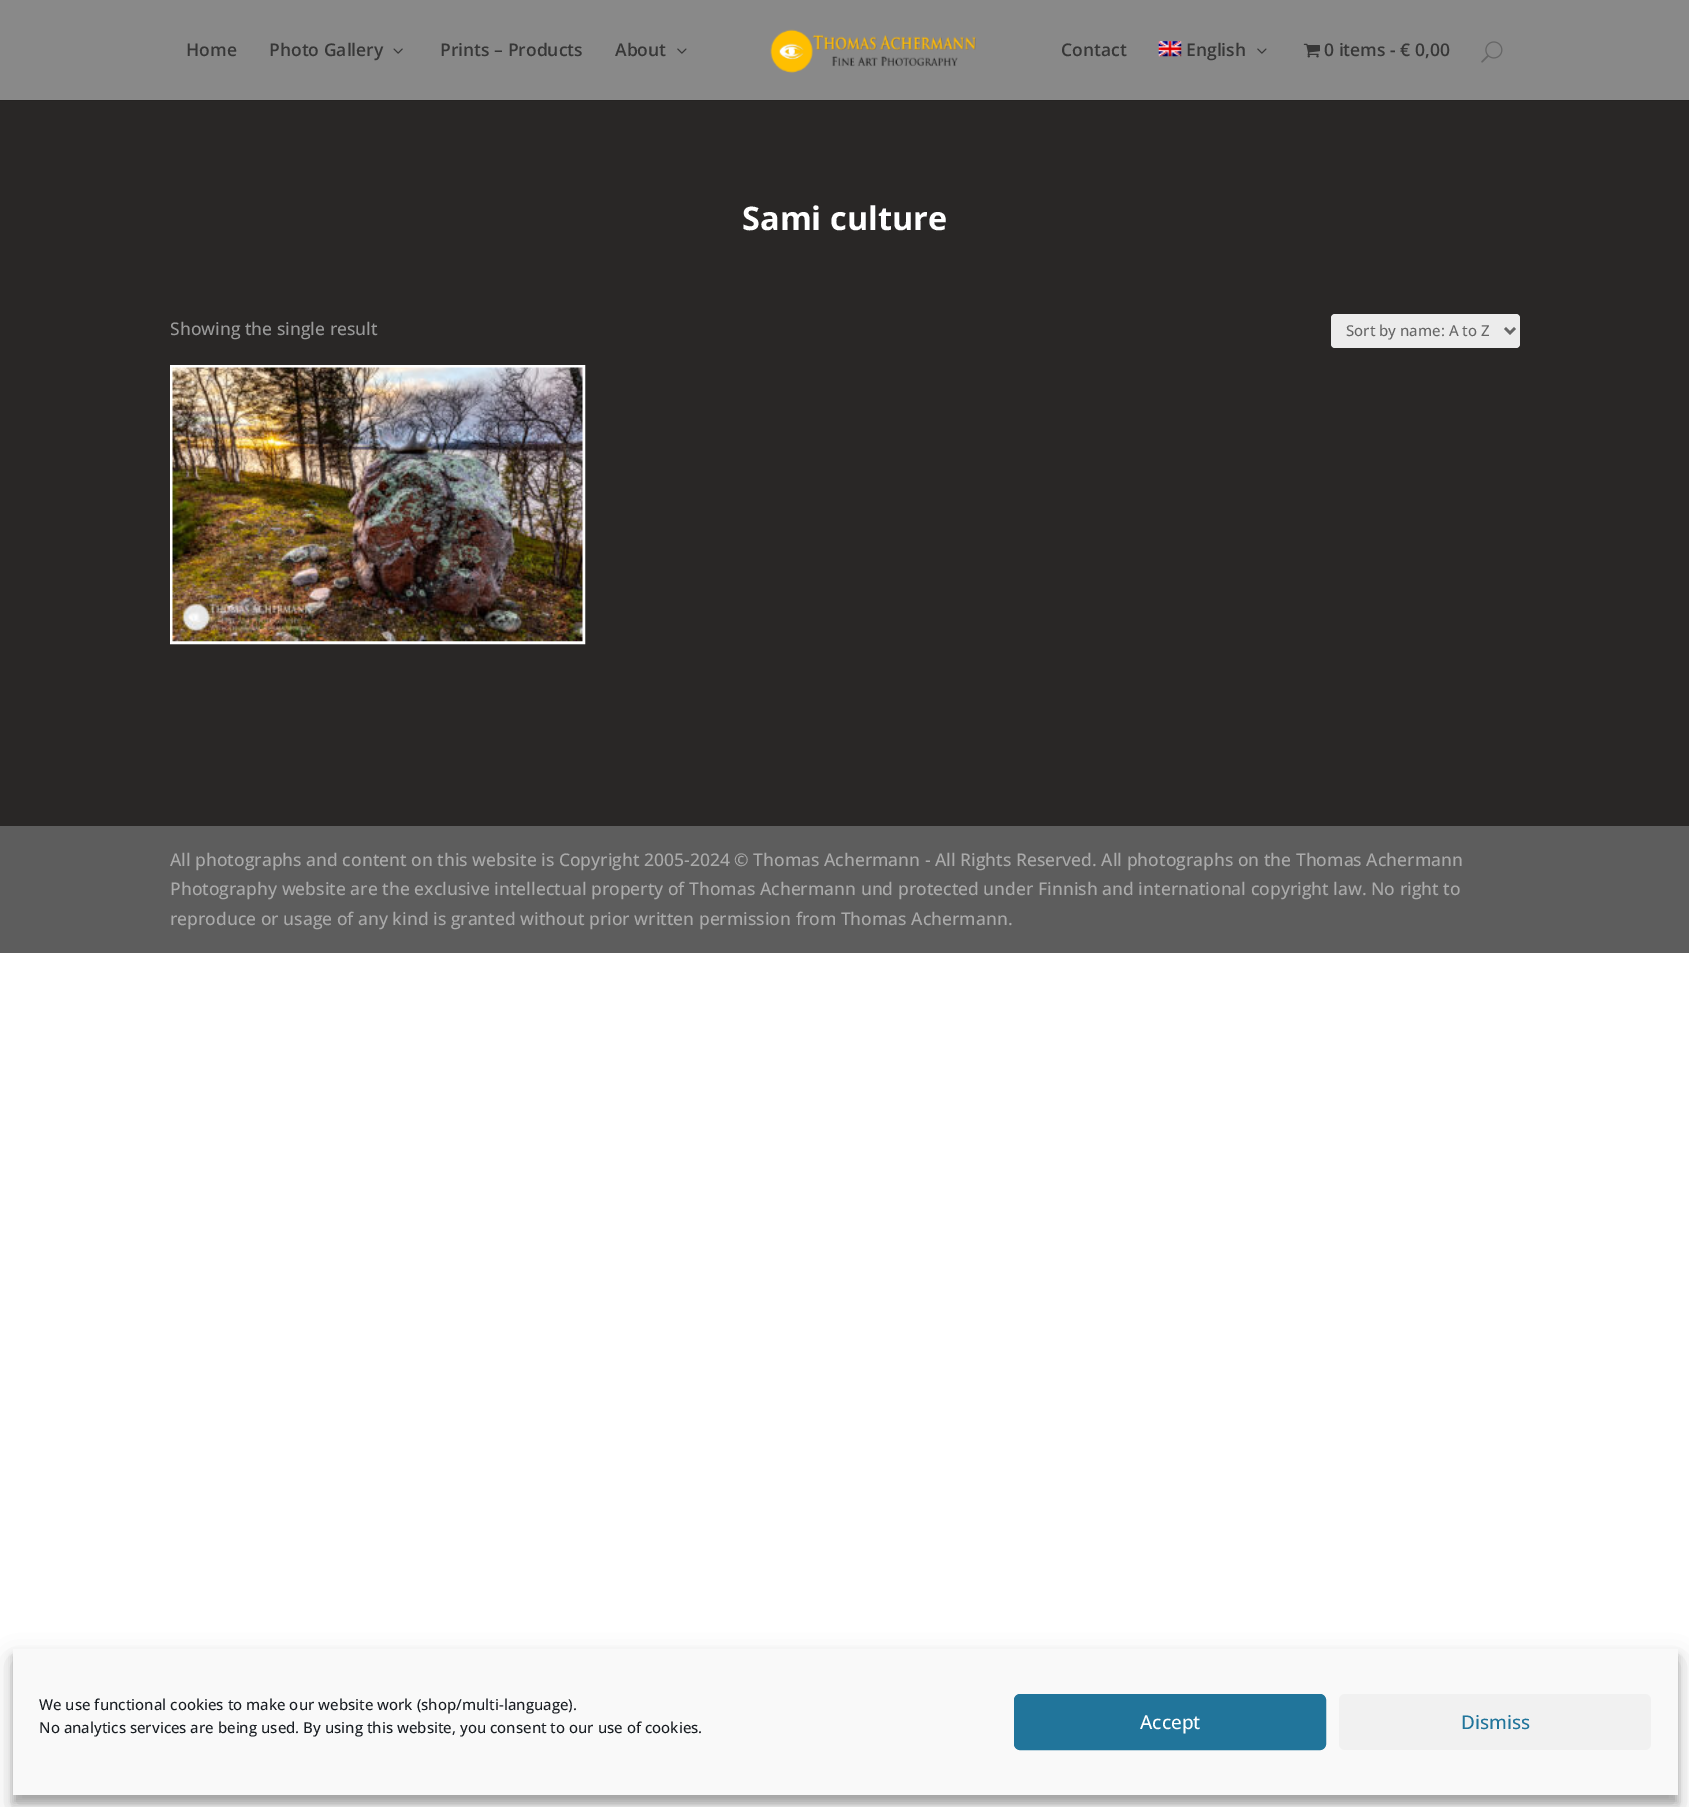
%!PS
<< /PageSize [1689 1807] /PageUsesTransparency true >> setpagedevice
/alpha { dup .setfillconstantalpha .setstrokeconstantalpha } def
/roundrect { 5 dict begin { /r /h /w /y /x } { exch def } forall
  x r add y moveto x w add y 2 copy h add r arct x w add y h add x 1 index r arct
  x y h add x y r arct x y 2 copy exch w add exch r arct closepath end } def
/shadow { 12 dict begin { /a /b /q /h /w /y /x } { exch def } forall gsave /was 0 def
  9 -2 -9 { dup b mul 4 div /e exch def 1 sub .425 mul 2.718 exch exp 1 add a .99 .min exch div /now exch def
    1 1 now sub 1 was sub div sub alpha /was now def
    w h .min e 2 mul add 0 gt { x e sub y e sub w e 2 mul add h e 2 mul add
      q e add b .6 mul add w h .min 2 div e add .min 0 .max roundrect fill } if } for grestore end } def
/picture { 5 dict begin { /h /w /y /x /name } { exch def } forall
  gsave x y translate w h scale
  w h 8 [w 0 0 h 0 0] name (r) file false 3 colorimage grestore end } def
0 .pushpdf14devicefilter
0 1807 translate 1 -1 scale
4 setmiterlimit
1 setgray
0 0 1689 1807 rectfill
0.145 0.137 0.133 setrgbcolor
0 100 1689 1 rectfill
0.537 setgray
0 0 1689 100 rectfill
/OpenSans-SemiBold [17.5 0 0 -17.5 0 0] selectfont
0.216 setgray
186 56 moveto (Home) show
269 56 moveto (Photo Gallery) show
(img1.rgb) 393 48 10 6 picture
440 56 moveto (Prints – Products) show
615 56 moveto (About) show
(img2.rgb) 677 48 10 6 picture
(img3.rgb) 770 29 206 44 picture
1061 56 moveto (Contact) show
(img4.rgb) 1158 41 24 16 picture
1186 56 moveto (English) show
(img2.rgb) 1257 48 10 6 picture
(img5.rgb) 1303 43 17 15 picture
1324 56 moveto (0 items - € 0,00) show
(img6.rgb) 1481 41 22 22 picture
0.161 0.153 0.149 setrgbcolor
0 101 1689 725 rectfill
/OpenSans-Bold [32.5 0 0 -32.5 0 0] selectfont
1 setgray
742 230 moveto (Sami culture) show
/OpenSans-Medium [17.5 0 0 -17.5 0 0] selectfont
0.6 setgray
170 335 moveto (Showing the single result) show
0.925 setgray
1331 314 189 34 4 roundrect fill
0.4 setgray
2.5 setlinewidth
newpath 1505 328 moveto 1510 333 lineto 1515 328 lineto stroke
/OpenSans-Medium [15 0 0 -15 0 0] selectfont
1346 336 moveto (Sort by name: A to Z) show
1 setgray
3 setlinewidth
171.5 366.5 412 276 rectstroke
(img7.rgb) 172 367 411 275 picture
0.365 setgray
0 826 1689 127 rectfill
/OpenSans-Medium [17.5 0 0 -17.5 0 0] selectfont
0.667 setgray
170 866 moveto (All photographs and content on this website is Copyright 2005-2024 © Thomas Achermann - All Rights Reserved. All photographs on the Thomas Achermann) show
170 895 moveto (Photography website are the exclusive intellectual property of Thomas Achermann und protected under Finnish and international copyright law. No right to) show
170 925 moveto (reproduce or usage of any kind is granted without prior written permission from Thomas Achermann.) show
0 setgray
13 1656 1665 147 0 4 0.23 shadow
13 1661 1665 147 0 12.5 0.19 shadow
0.976 setgray
13 1649 1665 146 rectfill
/OpenSans-Medium [15 0 0 -15 0 0] selectfont
0.098 0.118 0.137 setrgbcolor
39 1710 moveto (We use functional cookies to make our website work \(shop/multi-language\).) show
39 1733 moveto (No analytics services are being used. By using this website, you consent to our use of cookies.) show
0.129 0.459 0.608 setrgbcolor
1014.5 1694.5 311 55 5.5 roundrect gsave fill grestore
1 setlinewidth
stroke
/OpenSans-Medium [19 0 0 -19 0 0] selectfont
1 setgray
1140 1729 moveto (Accept) show
0.945 setgray
1339 1694 312 56 6 roundrect fill
0.129 0.459 0.608 setrgbcolor
1461 1729 moveto (Dismiss) show
.poppdf14devicefilter showpage
